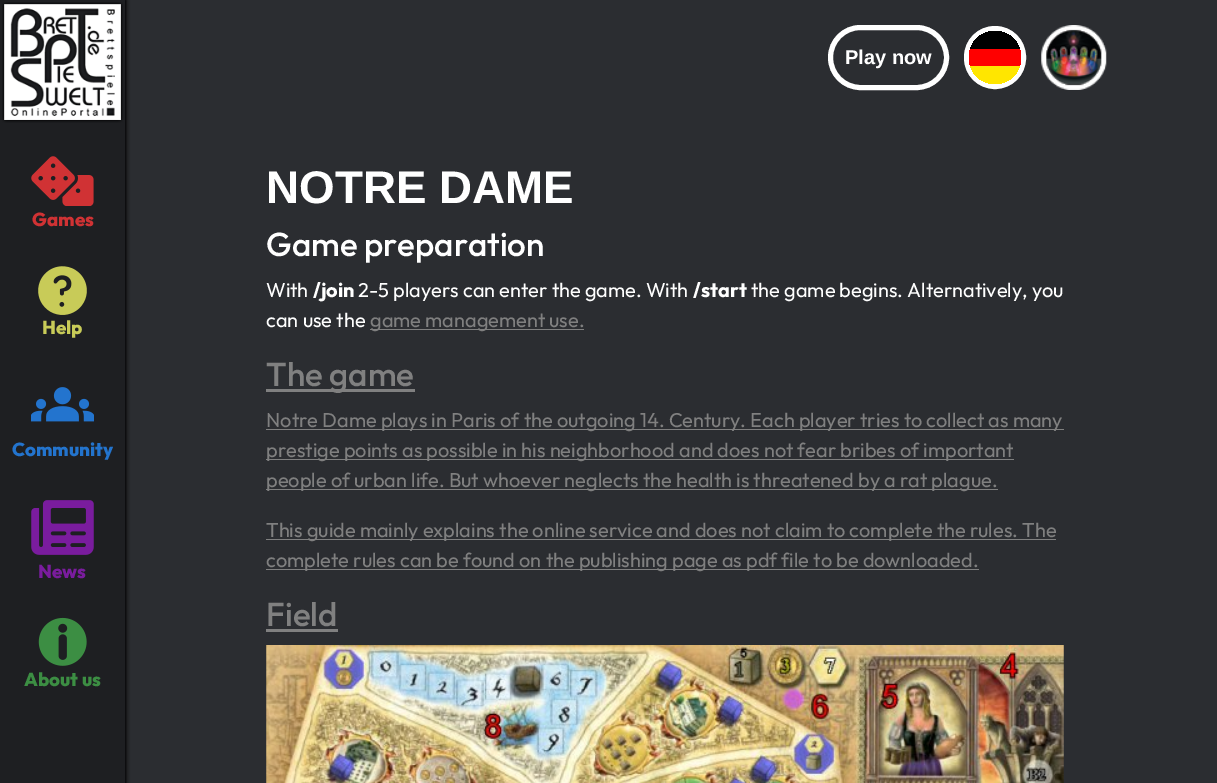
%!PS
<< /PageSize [1217 783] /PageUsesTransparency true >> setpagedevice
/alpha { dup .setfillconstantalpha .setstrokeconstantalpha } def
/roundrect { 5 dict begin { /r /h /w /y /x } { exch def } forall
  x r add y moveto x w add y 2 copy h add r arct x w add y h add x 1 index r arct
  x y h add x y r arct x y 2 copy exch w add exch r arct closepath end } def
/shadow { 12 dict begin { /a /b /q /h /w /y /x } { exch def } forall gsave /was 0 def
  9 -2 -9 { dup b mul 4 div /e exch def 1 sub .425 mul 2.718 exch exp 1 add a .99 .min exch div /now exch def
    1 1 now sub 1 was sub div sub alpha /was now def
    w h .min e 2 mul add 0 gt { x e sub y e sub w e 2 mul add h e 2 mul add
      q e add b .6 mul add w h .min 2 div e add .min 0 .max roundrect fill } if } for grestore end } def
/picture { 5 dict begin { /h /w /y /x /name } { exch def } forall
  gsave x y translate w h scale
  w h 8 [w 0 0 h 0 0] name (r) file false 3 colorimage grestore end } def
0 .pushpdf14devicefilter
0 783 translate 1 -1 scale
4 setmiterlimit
0.169 0.176 0.192 setrgbcolor
0 0 1217 783 rectfill
0 setgray
0 0 125 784 0 2.5 1 shadow
0.118 0.122 0.133 setrgbcolor
0 0 125 783 rectfill
gsave
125 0 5 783 rectclip
0 setgray
0 0 125 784 0 2.5 1 shadow
grestore
(img1.rgb) 2 2 121 121 picture
(img2.rgb) 31 156 63 50 picture
/Outfit-ExtraBold [18.75 0 0 -18.75 0 0] selectfont
0.816 0.196 0.204 setrgbcolor
32 226 moveto (Games) show
(img3.rgb) 38 266 49 49 picture
0.784 0.796 0.345 setrgbcolor
42 334 moveto (Help) show
(img4.rgb) 31 387 63 35 picture
0.137 0.455 0.808 setrgbcolor
12 456 moveto (Community) show
(img5.rgb) 31 500 63 55 picture
0.478 0.11 0.62 setrgbcolor
38 578 moveto (News) show
(img6.rgb) 38 617 49 49 picture
0.235 0.557 0.263 setrgbcolor
24 686 moveto (About us) show
1 setgray
5 setlinewidth
830.5 27.5 116 60 30 roundrect stroke
/LiberationSans-Bold [20 0 0 -20 0 0] selectfont
845 64 moveto (Play now) show
966.5 28.5 57 58 28.5 roundrect stroke
gsave
969 31 52 53 26 roundrect clip newpath
1 0.902 0 setrgbcolor
970 66 50 18 rectfill
0 setgray
970 31 50 18 rectfill
1 0 0 setrgbcolor
969 49 52 17 rectfill
grestore
(img7.rgb) 1041 25 66 65 picture
/LiberationSans-Bold [45.75 0 0 -45.75 0 0] selectfont
266 203 moveto (NOTRE DAME) show
/Outfit-Medium [33.25 0 0 -33.25 0 0] selectfont
266 256 moveto (Game preparation) show
/Outfit-Regular [20 0 0 -20 0 0] selectfont
266 297 moveto (With) show
/Outfit-Bold [20 0 0 -20 0 0] selectfont
313 297 moveto (/join) show
/Outfit-Regular [20 0 0 -20 0 0] selectfont
358 297 moveto (2-5 players can enter the game. With) show
/Outfit-Bold [20 0 0 -20 0 0] selectfont
693 297 moveto (/start) show
/Outfit-Regular [20 0 0 -20 0 0] selectfont
751 297 moveto (the game begins. Alternatively, you) show
266 327 moveto (can use the) show
0.502 setgray
370 329 214 1 rectfill
370 327 moveto (game management use.) show
266 389 149 3 rectfill
/Outfit-Medium [33.25 0 0 -33.25 0 0] selectfont
266 386 moveto (The game) show
266 429 798 1 rectfill
/Outfit-Regular [20 0 0 -20 0 0] selectfont
266 427 moveto (Notre Dame plays in Paris of the outgoing 14. Century. Each player tries to collect as many) show
266 459 748 1 rectfill
266 457 moveto (prestige points as possible in his neighborhood and does not fear bribes of important) show
266 489 732 1 rectfill
266 487 moveto (people of urban life. But whoever neglects the health is threatened by a rat plague.) show
266 539 790 1 rectfill
266 537 moveto (This guide mainly explains the online service and does not claim to complete the rules. The) show
266 569 713 1 rectfill
266 567 moveto (complete rules can be found on the publishing page as pdf file to be downloaded.) show
/Outfit-Medium [33.25 0 0 -33.25 0 0] selectfont
266 626 moveto (Field) show
266 629 72 3 rectfill
(img8.rgb) 266 645 798 138 picture
.poppdf14devicefilter showpage
